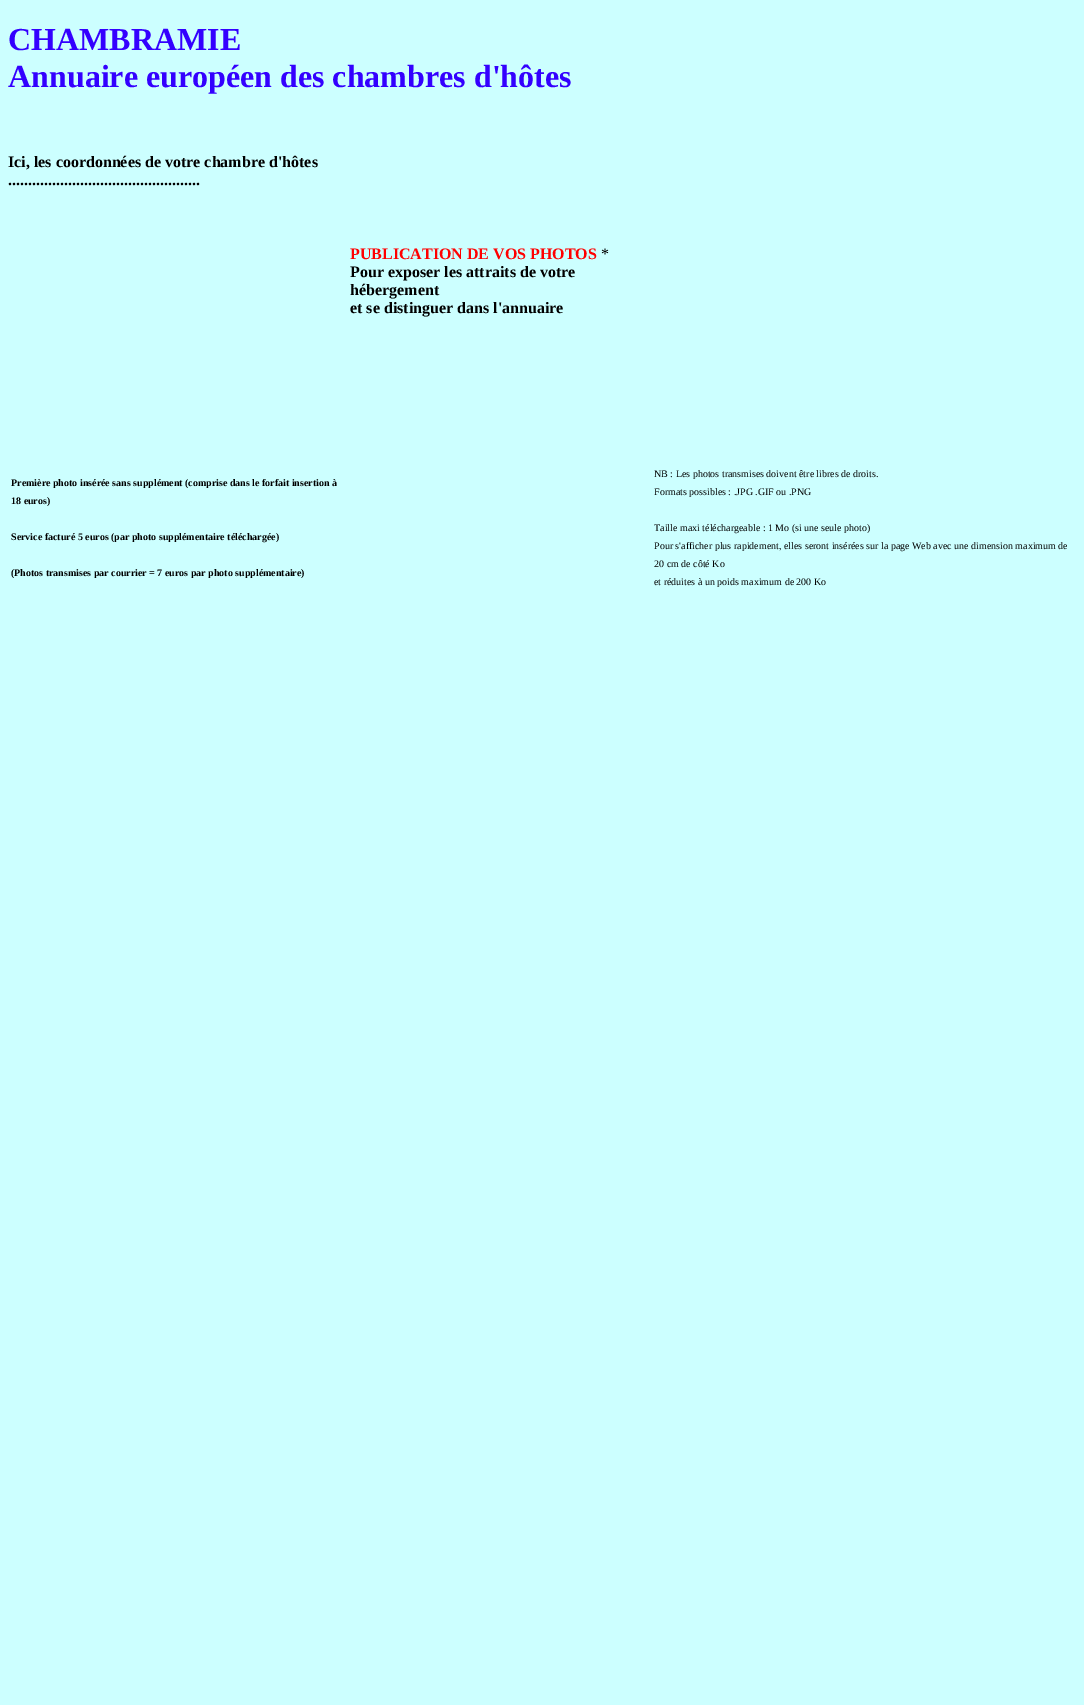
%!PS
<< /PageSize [1084 1705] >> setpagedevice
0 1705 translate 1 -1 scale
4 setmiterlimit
0.8 1 1 setrgbcolor
0 0 1084 1705 rectfill
/LiberationSerif-Bold [32 0 0 -32 0 0] selectfont
0.2 0 1 setrgbcolor
8 50 moveto (CHAMBRAMIE) show
8 87 moveto (Annuaire européen des chambres d'hôtes) show
/LiberationSerif-Bold [16 0 0 -16 0 0] selectfont
0 setgray
8 167 moveto (Ici, les coordonnées de votre chambre d'hôtes) show
8 185 moveto (................................................) show
1 0 0 setrgbcolor
350 259 moveto (PUBLICATION DE VOS PHOTOS) show
/LiberationSerif-Regular [16 0 0 -16 0 0] selectfont
0 setgray
601 259 moveto (*) show
/LiberationSerif-Bold [16 0 0 -16 0 0] selectfont
350 277 moveto (Pour exposer les attraits de votre) show
350 295 moveto (hébergement) show
350 313 moveto (et se distinguer dans l'annuaire) show
/LiberationSerif-Bold [10 0 0 -10 0 0] selectfont
11 486 moveto (Première photo insérée sans supplément \(comprise dans le forfait insertion à) show
11 504 moveto (18 euros\)) show
11 540 moveto (Service facturé 5 euros \(par photo supplémentaire téléchargée\)) show
11 576 moveto (\(Photos transmises par courrier = 7 euros par photo supplémentaire\)) show
/LiberationSerif-Regular [10 0 0 -10 0 0] selectfont
654 477 moveto (NB : Les photos transmises doivent être libres de droits.) show
654 495 moveto (Formats possibles : .JPG .GIF ou .PNG) show
654 531 moveto (Taille maxi téléchargeable : 1 Mo \(si une seule photo\)) show
654 549 moveto (Pour s'afficher plus rapidement, elles seront insérées sur la page Web avec une dimension maximum de) show
654 567 moveto (20 cm de côté Ko) show
654 585 moveto (et réduites à un poids maximum de 200 Ko) show
showpage
